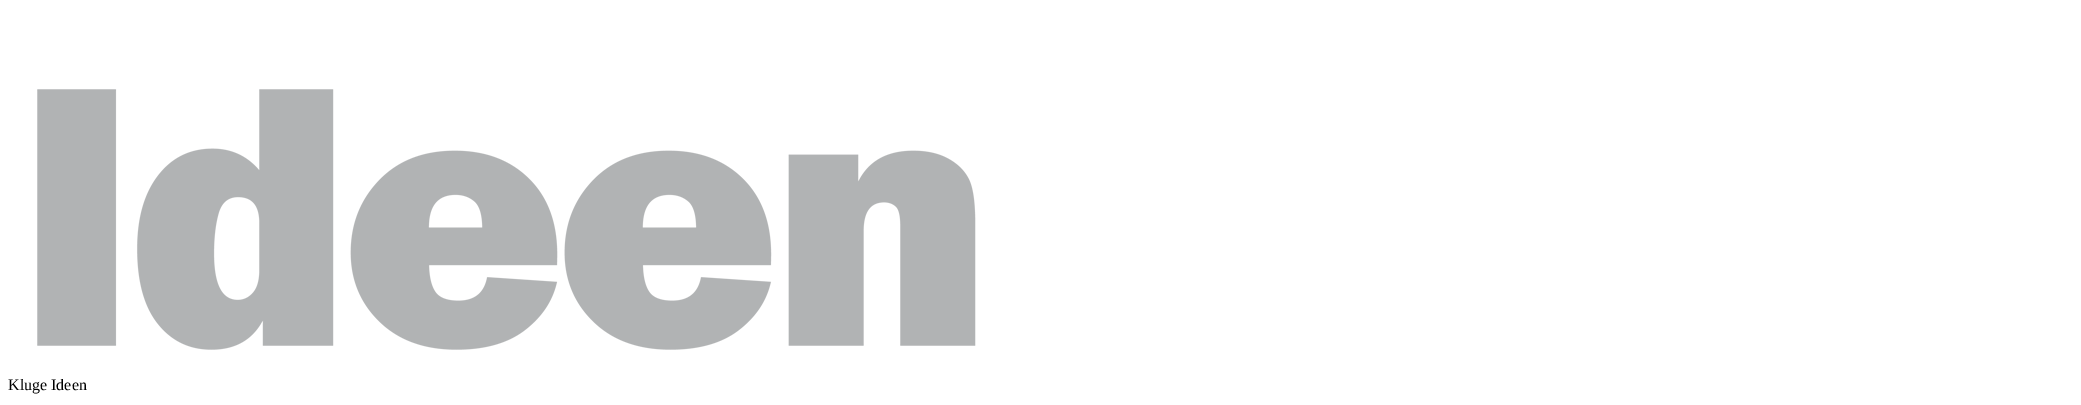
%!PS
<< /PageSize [2081 405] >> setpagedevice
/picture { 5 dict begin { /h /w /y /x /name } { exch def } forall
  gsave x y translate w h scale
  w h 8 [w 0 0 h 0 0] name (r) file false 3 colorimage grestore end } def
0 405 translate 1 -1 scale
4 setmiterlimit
1 setgray
0 0 2081 405 rectfill
(img1.rgb) 37 89 939 261 picture
/LiberationSerif-Regular [16 0 0 -16 0 0] selectfont
0 setgray
8 390 moveto (Kluge Ideen) show
showpage
